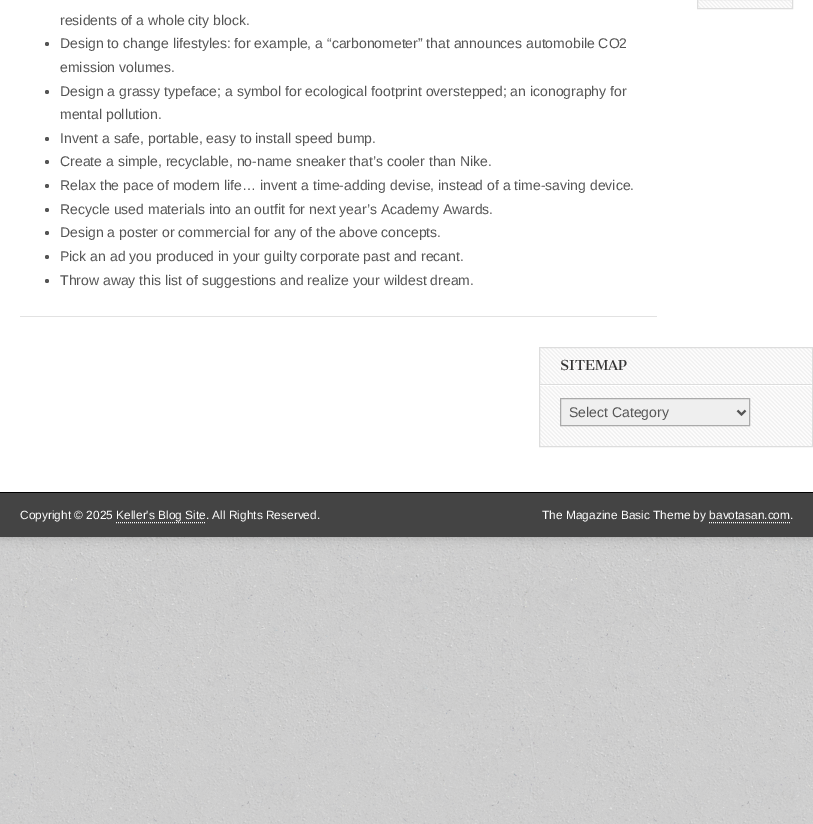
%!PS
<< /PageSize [813 824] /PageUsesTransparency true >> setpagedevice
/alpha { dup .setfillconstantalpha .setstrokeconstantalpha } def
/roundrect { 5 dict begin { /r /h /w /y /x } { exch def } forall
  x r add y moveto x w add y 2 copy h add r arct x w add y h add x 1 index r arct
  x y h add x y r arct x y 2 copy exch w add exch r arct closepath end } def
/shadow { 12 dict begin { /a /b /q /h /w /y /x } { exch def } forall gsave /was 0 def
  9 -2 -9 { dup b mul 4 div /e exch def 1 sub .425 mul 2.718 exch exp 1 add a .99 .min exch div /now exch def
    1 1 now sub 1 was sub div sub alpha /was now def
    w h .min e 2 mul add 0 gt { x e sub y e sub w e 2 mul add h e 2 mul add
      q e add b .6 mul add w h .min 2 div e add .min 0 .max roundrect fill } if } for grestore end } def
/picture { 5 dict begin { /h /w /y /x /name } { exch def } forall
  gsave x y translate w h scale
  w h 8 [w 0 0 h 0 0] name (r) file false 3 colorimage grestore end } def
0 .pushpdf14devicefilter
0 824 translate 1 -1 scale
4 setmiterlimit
1 setgray
0 0 813 824 rectfill
(img1.rgb) 0 537 813 287 picture
0 setgray
0 -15 813 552 0 5 0.2 shadow
1 setgray
0 0 813 492 rectfill
(img2.rgb) 698 0 94 8 picture
0.867 setgray
697.5 -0.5 95 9 rectstroke
0.886 setgray
20 316 637 1 rectfill
/LiberationSans-Regular [14 0 0 -14 0 0] selectfont
0.333 setgray
60 25 moveto (residents of a whole city block.) show
newpath 47 44 2 0 360 arc closepath fill
60 48 moveto (Design to change lifestyles: for example, a “carbonometer” that announces automobile CO2) show
60 72 moveto (emission volumes.) show
newpath 47 92 2 0 360 arc closepath fill
60 96 moveto (Design a grassy typeface; a symbol for ecological footprint overstepped; an iconography for) show
60 119 moveto (mental pollution.) show
newpath 47 139 2 0 360 arc closepath fill
60 143 moveto (Invent a safe, portable, easy to install speed bump.) show
newpath 47 162 2 0 360 arc closepath fill
60 166 moveto (Create a simple, recyclable, no-name sneaker that’s cooler than Nike.) show
newpath 47 186 2 0 360 arc closepath fill
60 190 moveto (Relax the pace of modern life… invent a time-adding devise, instead of a time-saving device.) show
newpath 47 210 2 0 360 arc closepath fill
60 214 moveto (Recycle used materials into an outfit for next year’s Academy Awards.) show
newpath 47 233 2 0 360 arc closepath fill
60 237 moveto (Design a poster or commercial for any of the above concepts.) show
newpath 47 257 2 0 360 arc closepath fill
60 261 moveto (Pick an ad you produced in your guilty corporate past and recant.) show
newpath 47 281 2 0 360 arc closepath fill
60 285 moveto (Throw away this list of suggestions and realize your wildest dream.) show
(img3.rgb) 540 348 272 98 picture
0.867 setgray
539.5 347.5 273 99 rectstroke
1 setgray
540 385 272 1 rectfill
0.867 setgray
540 384 272 1 rectfill
/CantataOne-Regular [13.5 0 0 -13.5 0 0] selectfont
0.2 setgray
560 370 moveto (SITEMAP) show
0.937 setgray
newpath 560.5 398.5 moveto 749.5 398.5 lineto 749.5 425.5 lineto 560.5 425.5 lineto closepath gsave fill grestore
0.667 setgray
stroke
0.333 setgray
2 setlinewidth
newpath 737.5 410.5 moveto 741.5 414.5 lineto 745.5 410.5 lineto stroke
/LiberationSans-Regular [14 0 0 -14 0 0] selectfont
569 417 moveto (Select Category) show
0.267 setgray
0 493 813 44 rectfill
0 setgray
0 492 813 1 rectfill
/LiberationSans-Regular [11.9 0 0 -11.9 0 0] selectfont
1 setgray
20 519 moveto (Copyright © 2025 Keller's Blog Site. All Rights Reserved.) show
1 setlinewidth
[1 1] 0 setdash
newpath 116 522.5 moveto 206 522.5 lineto stroke
542 519 moveto (The Magazine Basic Theme by bavotasan.com.) show
newpath 709 522.5 moveto 790 522.5 lineto stroke
.poppdf14devicefilter showpage
